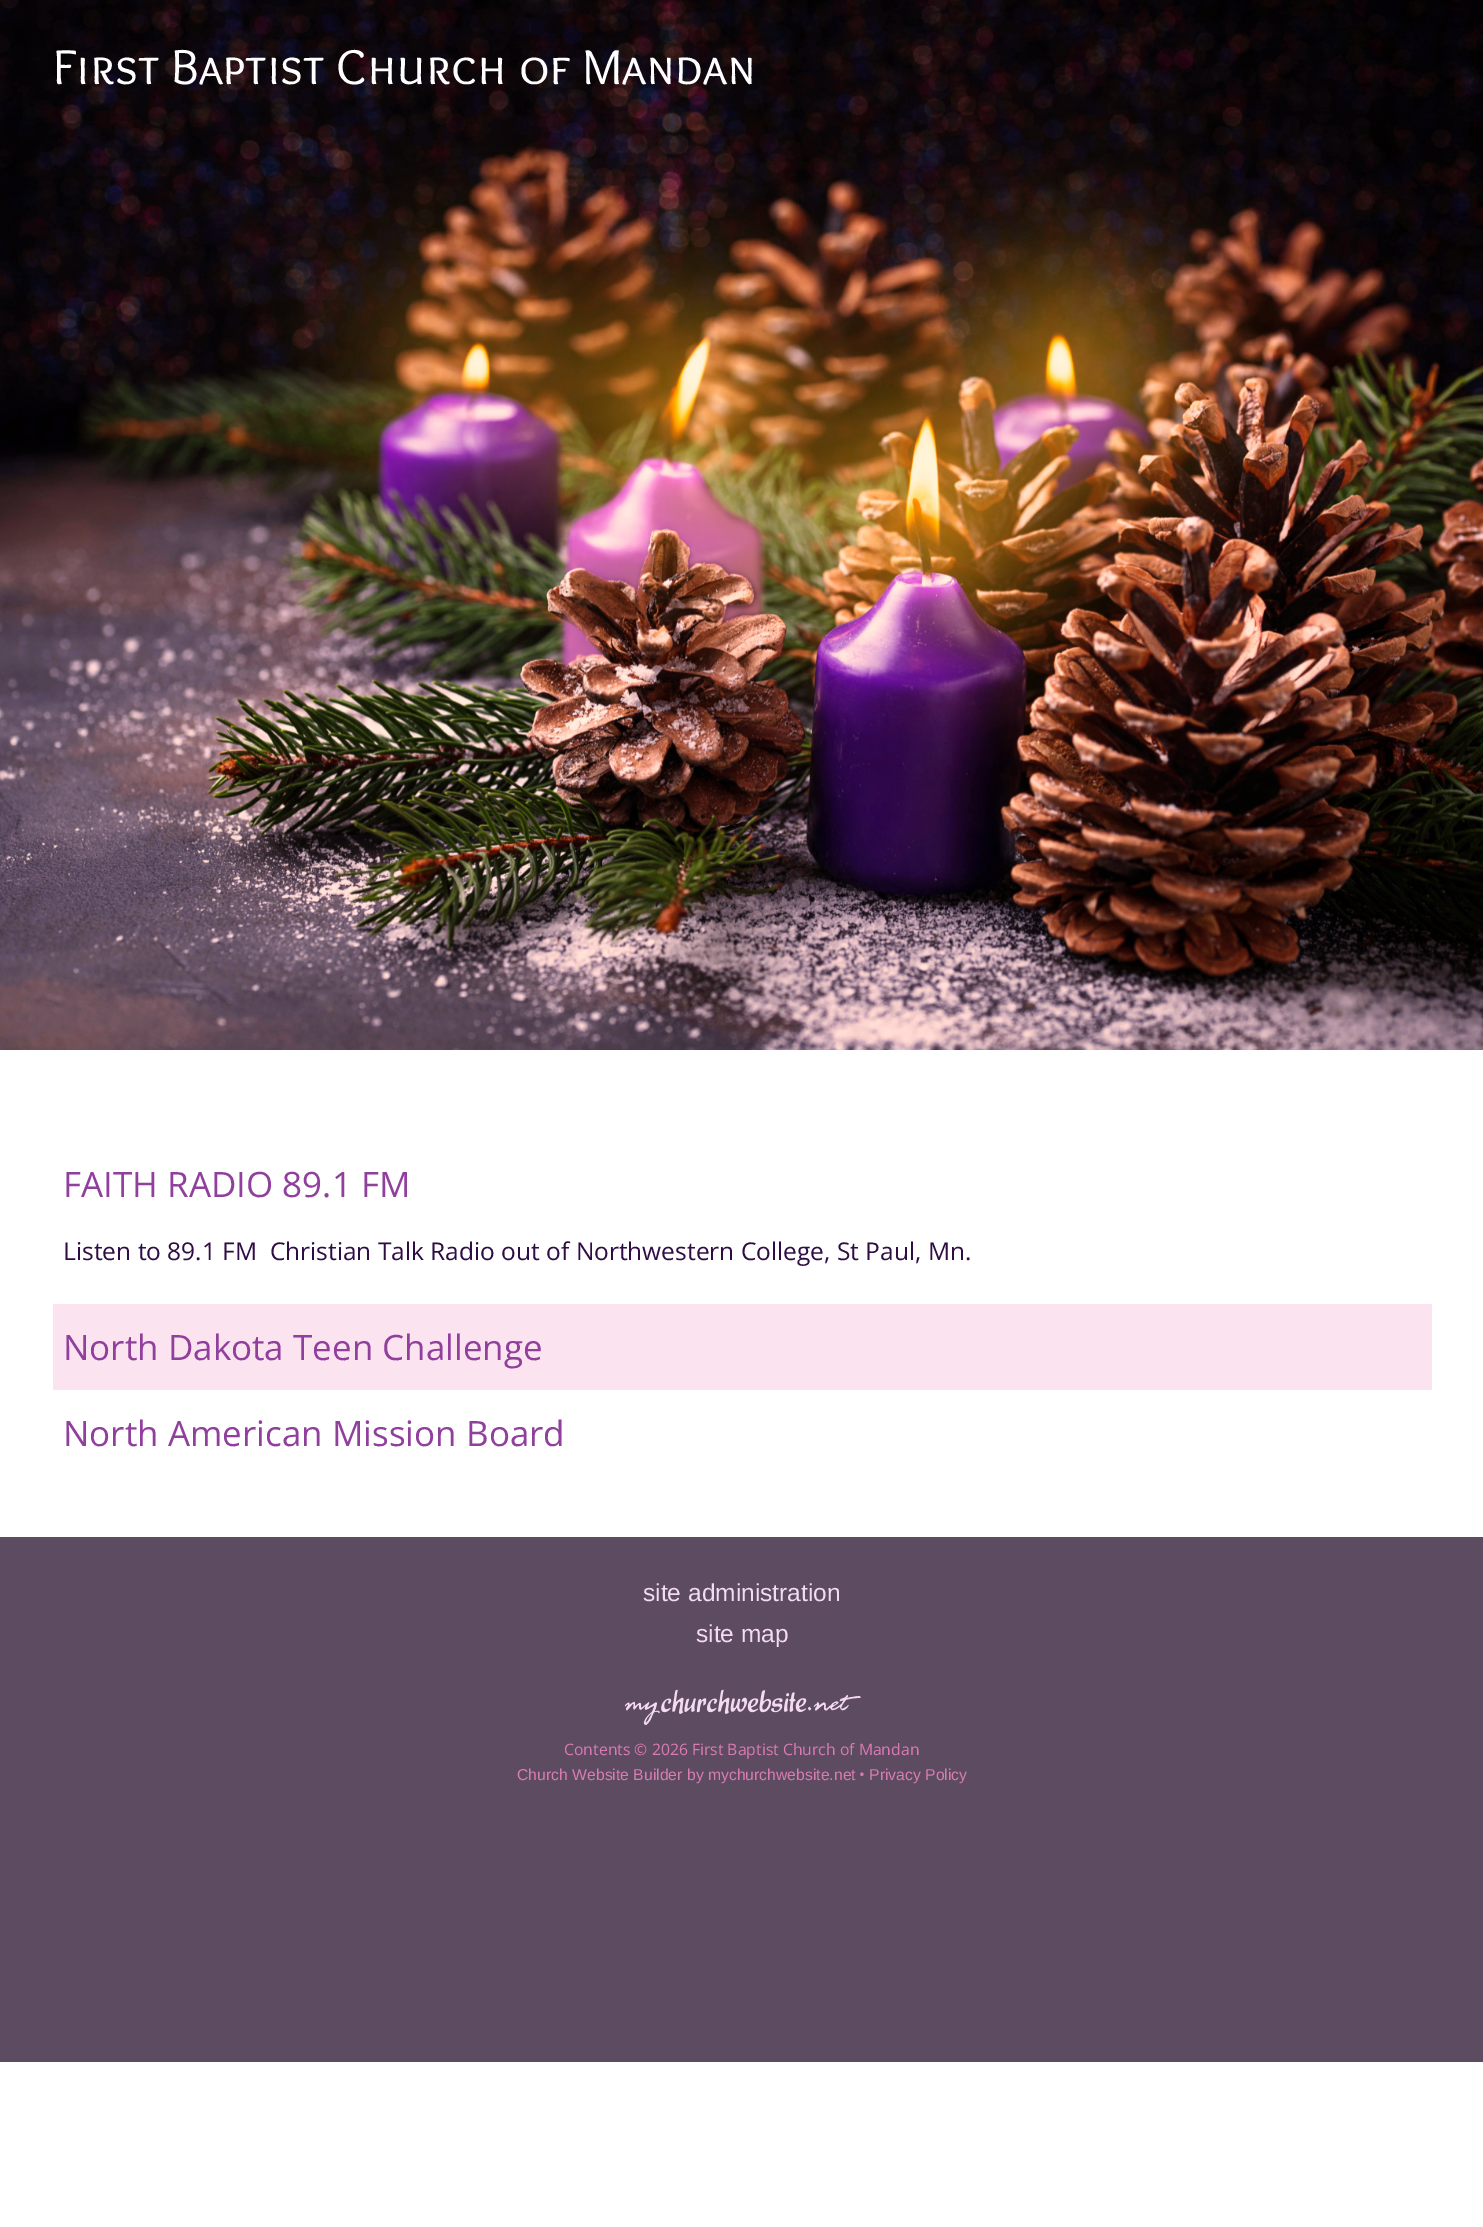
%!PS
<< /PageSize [1483 2227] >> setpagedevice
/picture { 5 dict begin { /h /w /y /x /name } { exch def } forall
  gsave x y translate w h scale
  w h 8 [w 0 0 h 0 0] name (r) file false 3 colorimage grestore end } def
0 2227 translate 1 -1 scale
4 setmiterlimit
1 setgray
0 0 1483 2227 rectfill
(img1.rgb) 0 0 1483 1050 picture
/OverlockSC-Regular [50.75 0 0 -50.75 0 0] selectfont
53 84 moveto (First Baptist Church of Mandan) show
/OpenSans-Regular [35 0 0 -35 0 0] selectfont
0.565 0.247 0.612 setrgbcolor
63 1197 moveto (FAITH RADIO 89.1 FM) show
/OpenSans-Regular [24.5 0 0 -24.5 0 0] selectfont
0.184 0.047 0.267 setrgbcolor
63 1260 moveto (Listen to 89.1 FM  Christian Talk Radio out of Northwestern College, St Paul, Mn.) show
0.988 0.89 0.941 setrgbcolor
53 1304 1379 86 rectfill
/OpenSans-Regular [35 0 0 -35 0 0] selectfont
0.565 0.247 0.612 setrgbcolor
63 1360 moveto (North Dakota Teen Challenge) show
63 1446 moveto (North American Mission Board) show
0.365 0.294 0.38 setrgbcolor
0 1537 1483 525 rectfill
/LiberationSans-Regular [24.5 0 0 -24.5 0 0] selectfont
0.961 0.859 0.941 setrgbcolor
643 1601 moveto (site administration) show
696 1642 moveto (site map) show
(img2.rgb) 625 1689 236 36 picture
/OpenSans-Regular [15.75 0 0 -15.75 0 0] selectfont
0.851 0.486 0.702 setrgbcolor
564 1755 moveto (Contents © 2026 First Baptist Church of Mandan) show
/LiberationSans-Regular [15.75 0 0 -15.75 0 0] selectfont
517 1780 moveto (Church Website Builder by mychurchwebsite.net) show
/OpenSans-Regular [15.75 0 0 -15.75 0 0] selectfont
859 1780 moveto (•) show
/LiberationSans-Regular [15.75 0 0 -15.75 0 0] selectfont
869 1780 moveto (Privacy Policy) show
showpage
